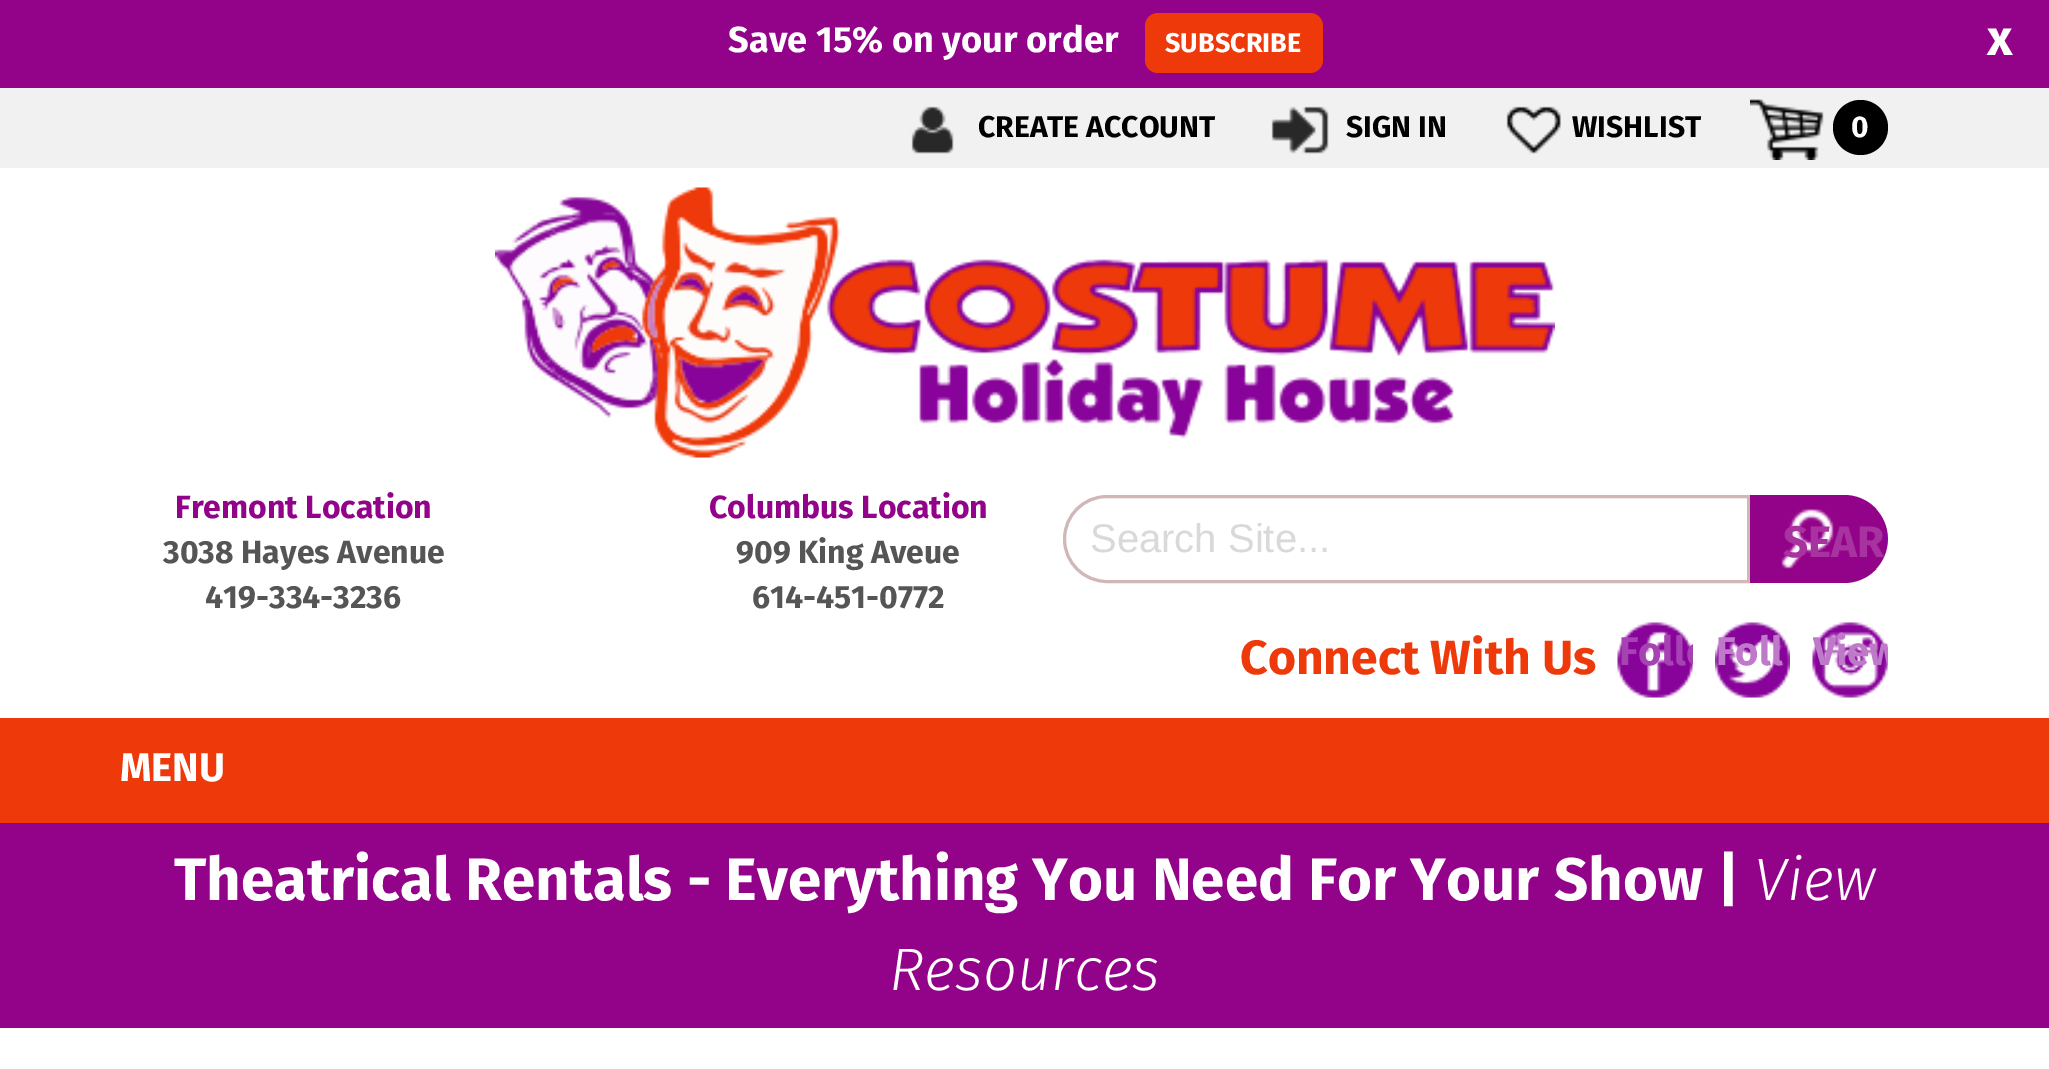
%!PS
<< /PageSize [2049 1069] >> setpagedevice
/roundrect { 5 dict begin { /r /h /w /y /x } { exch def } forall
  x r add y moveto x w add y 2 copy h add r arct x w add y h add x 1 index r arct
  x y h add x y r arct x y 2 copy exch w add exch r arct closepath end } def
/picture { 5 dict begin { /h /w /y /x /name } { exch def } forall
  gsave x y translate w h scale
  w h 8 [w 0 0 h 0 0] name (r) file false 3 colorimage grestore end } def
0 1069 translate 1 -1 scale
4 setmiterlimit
1 setgray
0 0 2049 1069 rectfill
0.576 0.012 0.537 setrgbcolor
0 0 2049 88 rectfill
/FiraSans-Bold [36.25 0 0 -36.25 0 0] selectfont
1 setgray
728 52 moveto (Save 15% on your order) show
0.933 0.224 0.039 setrgbcolor
1145 13 178 60 13 roundrect fill
/FiraSans-Bold [27 0 0 -27 0 0] selectfont
1 setgray
1165 52 moveto (SUBSCRIBE) show
/FiraSans-Bold [50 0 0 -50 0 0] selectfont
1987 55 moveto (x) show
0.945 setgray
0 88 2049 80 rectfill
(img1.rgb) 911 106 43 48 picture
/FiraSans-Bold [30 0 0 -30 0 0] selectfont
0 setgray
978 137 moveto (CREATE ACCOUNT) show
(img2.rgb) 1271 106 58 48 picture
1346 137 moveto (SIGN IN) show
(img3.rgb) 1506 106 55 48 picture
1572 137 moveto (WISHLIST) show
(img4.rgb) 1750 99 74 61 picture
newpath 1860.5 127.5 27.5 0 360 arc closepath fill
1 setgray
1851 137 moveto (0) show
(img5.rgb) 495 187 1060 271 picture
/FiraSans-Bold [32 0 0 -32 0 0] selectfont
0.576 0.012 0.537 setrgbcolor
175 518 moveto (Fremont Location) show
0.333 setgray
163 563 moveto (3038 Hayes Avenue) show
205 608 moveto (419-334-3236) show
0.576 0.012 0.537 setrgbcolor
709 518 moveto (Columbus Location) show
0.333 setgray
736 563 moveto (909 King Aveue) show
752 608 moveto (614-451-0772) show
0.82 0.718 0.718 setrgbcolor
3 setlinewidth
newpath 1107 496.5 moveto 1748.5 496.5 lineto 1748.5 581.5 lineto 1107 581.5 lineto 1083.5 581.5 1064.5 562.5 1064.5 539 curveto 1064.5 515.5 1083.5 496.5 1107 496.5 curveto closepath stroke
/LiberationSans-Regular [40 0 0 -40 0 0] selectfont
0.851 setgray
1090 552 moveto (Search Site...) show
0.576 0.012 0.537 setrgbcolor
newpath 1750 495 moveto 1844 495 lineto 1868.5 495 1888 514.5 1888 539 curveto 1888 563.5 1868.5 583 1844 583 curveto 1750 583 lineto closepath fill
(img6.rgb) 1781 509 107 60 picture
/FiraSans-Bold [44 0 0 -44 0 0] selectfont
0.659 0.2 0.627 setrgbcolor
1783 557 moveto (SEAR) show
/FiraSans-Bold [48 0 0 -48 0 0] selectfont
0.933 0.224 0.039 setrgbcolor
1240 674 moveto (Connect With Us) show
(img7.rgb) 1617 622 76 76 picture
gsave
1618 623 75 75 rectclip
/FiraSans-Bold [40 0 0 -40 0 0] selectfont
0.651 0.263 0.702 setrgbcolor
1619 665 moveto (Follo) show
grestore
(img8.rgb) 1715 622 75 76 picture
/FiraSans-Bold [40 0 0 -40 0 0] selectfont
0.749 0.475 0.788 setrgbcolor
1716 665 moveto (Foll) show
(img9.rgb) 1812 622 76 76 picture
gsave
1813 623 75 75 rectclip
1813 665 moveto (View) show
grestore
0.933 0.224 0.039 setrgbcolor
0 718 2049 105 rectfill
1 setgray
120 781 moveto (MENU) show
0.576 0.012 0.537 setrgbcolor
0 823 2049 205 rectfill
/FiraSans-Bold [60 0 0 -60 0 0] selectfont
1 setgray
174 900 moveto (Theatrical Rentals - Everything You Need For Your Show |) show
/FiraSans-LightItalic [60 0 0 -60 0 0] selectfont
1754 900 moveto (View) show
889 990 moveto (Resources) show
showpage
